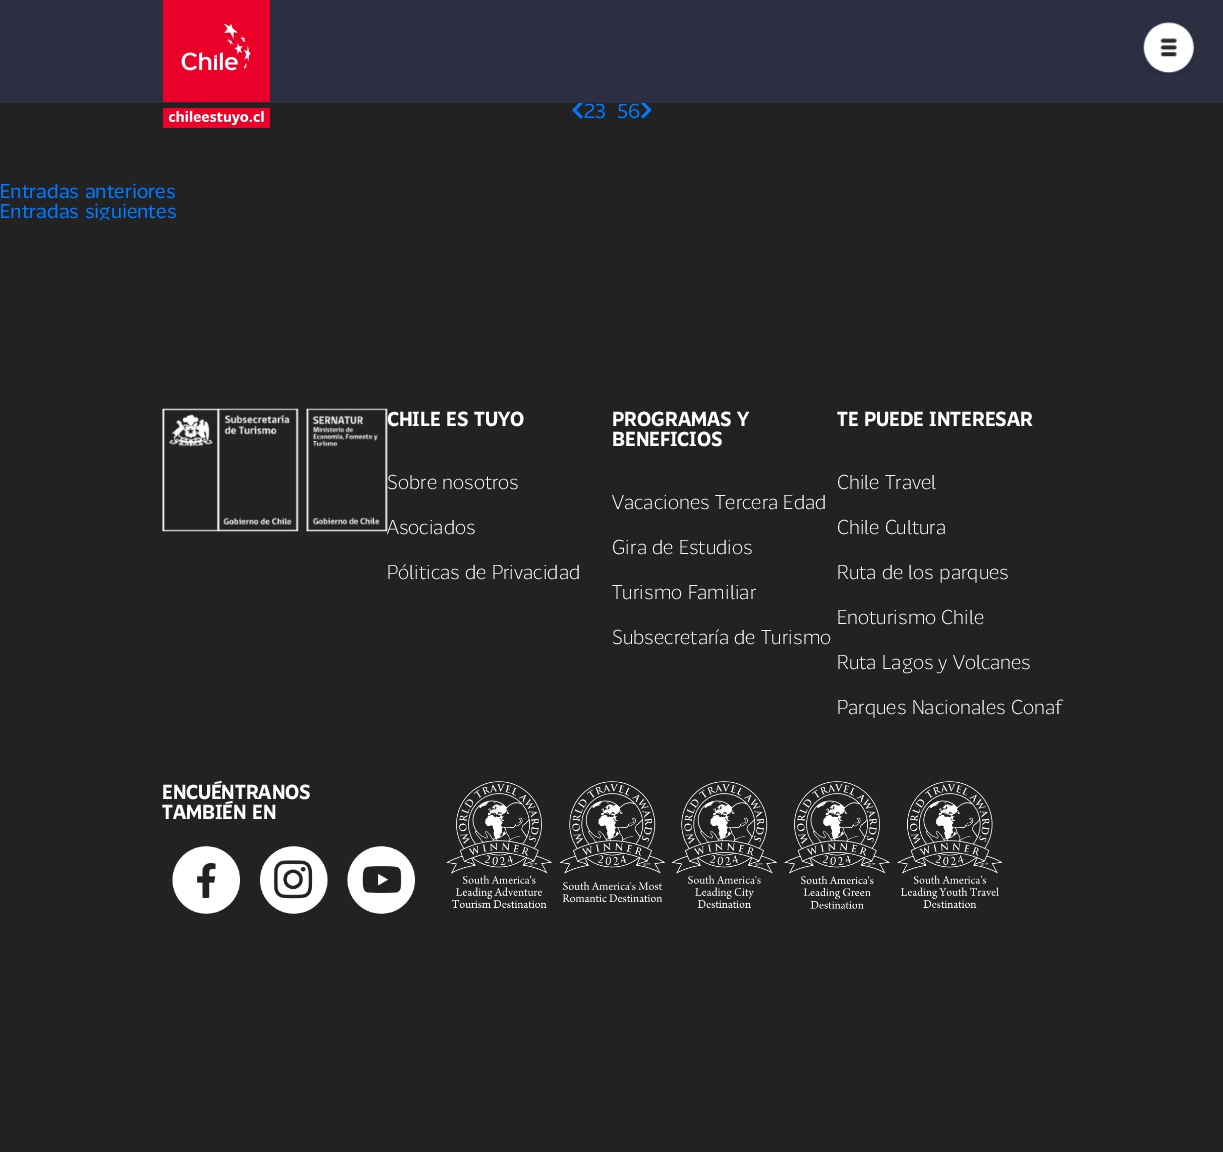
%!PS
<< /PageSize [1223 1152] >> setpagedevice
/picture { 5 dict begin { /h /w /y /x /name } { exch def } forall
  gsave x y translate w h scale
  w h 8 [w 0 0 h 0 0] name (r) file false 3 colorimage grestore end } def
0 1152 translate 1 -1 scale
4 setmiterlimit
0.133 setgray
0 0 1223 1152 rectfill
0.173 0.18 0.255 setrgbcolor
0 0 1223 103 rectfill
(img1.rgb) 163 0 107 128 picture
(img2.rgb) 1143 22 51 53 picture
(img3.rgb) 572 103 11 16 picture
/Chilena-Regular [20 0 0 -20 0 0] selectfont
0 0.482 1 setrgbcolor
584 118 moveto (23) show
617 118 moveto (56) show
(img4.rgb) 641 103 11 16 picture
0 198 moveto (Entradas anteriores) show
0 218 moveto (Entradas siguientes) show
0.133 setgray
100 220 10 3 rectfill
(img5.rgb) 162 408 226 124 picture
/Chilena-Bold [20 0 0 -20 0 0] selectfont
1 setgray
387 426 moveto (CHILE ES TUYO) show
/Chilena-Light [20 0 0 -20 0 0] selectfont
387 489 moveto (Sobre nosotros) show
387 534 moveto (Asociados) show
387 579 moveto (Póliticas de Privacidad) show
/Chilena-Bold [20 0 0 -20 0 0] selectfont
612 426 moveto (PROGRAMAS Y) show
612 446 moveto (BENEFICIOS) show
/Chilena-Light [20 0 0 -20 0 0] selectfont
612 509 moveto (Vacaciones Tercera Edad) show
612 554 moveto (Gira de Estudios) show
612 599 moveto (Turismo Familiar) show
612 644 moveto (Subsecretaría de Turismo) show
/Chilena-Bold [20 0 0 -20 0 0] selectfont
837 426 moveto (TE PUEDE INTERESAR) show
/Chilena-Light [20 0 0 -20 0 0] selectfont
837 489 moveto (Chile Travel) show
837 534 moveto (Chile Cultura) show
837 579 moveto (Ruta de los parques) show
837 624 moveto (Enoturismo Chile) show
837 669 moveto (Ruta Lagos y Volcanes) show
837 714 moveto (Parques Nacionales Conaf) show
/Chilena-Bold [20 0 0 -20 0 0] selectfont
162 799 moveto (ENCUÉNTRANOS) show
162 819 moveto (TAMBIÉN EN) show
(img6.rgb) 172 846 68 68 picture
(img7.rgb) 260 846 68 68 picture
(img8.rgb) 347 846 68 68 picture
(img9.rgb) 446 781 106 127 picture
(img10.rgb) 559 781 106 121 picture
(img11.rgb) 671 781 107 127 picture
(img12.rgb) 784 781 106 128 picture
(img13.rgb) 897 781 106 127 picture
showpage
